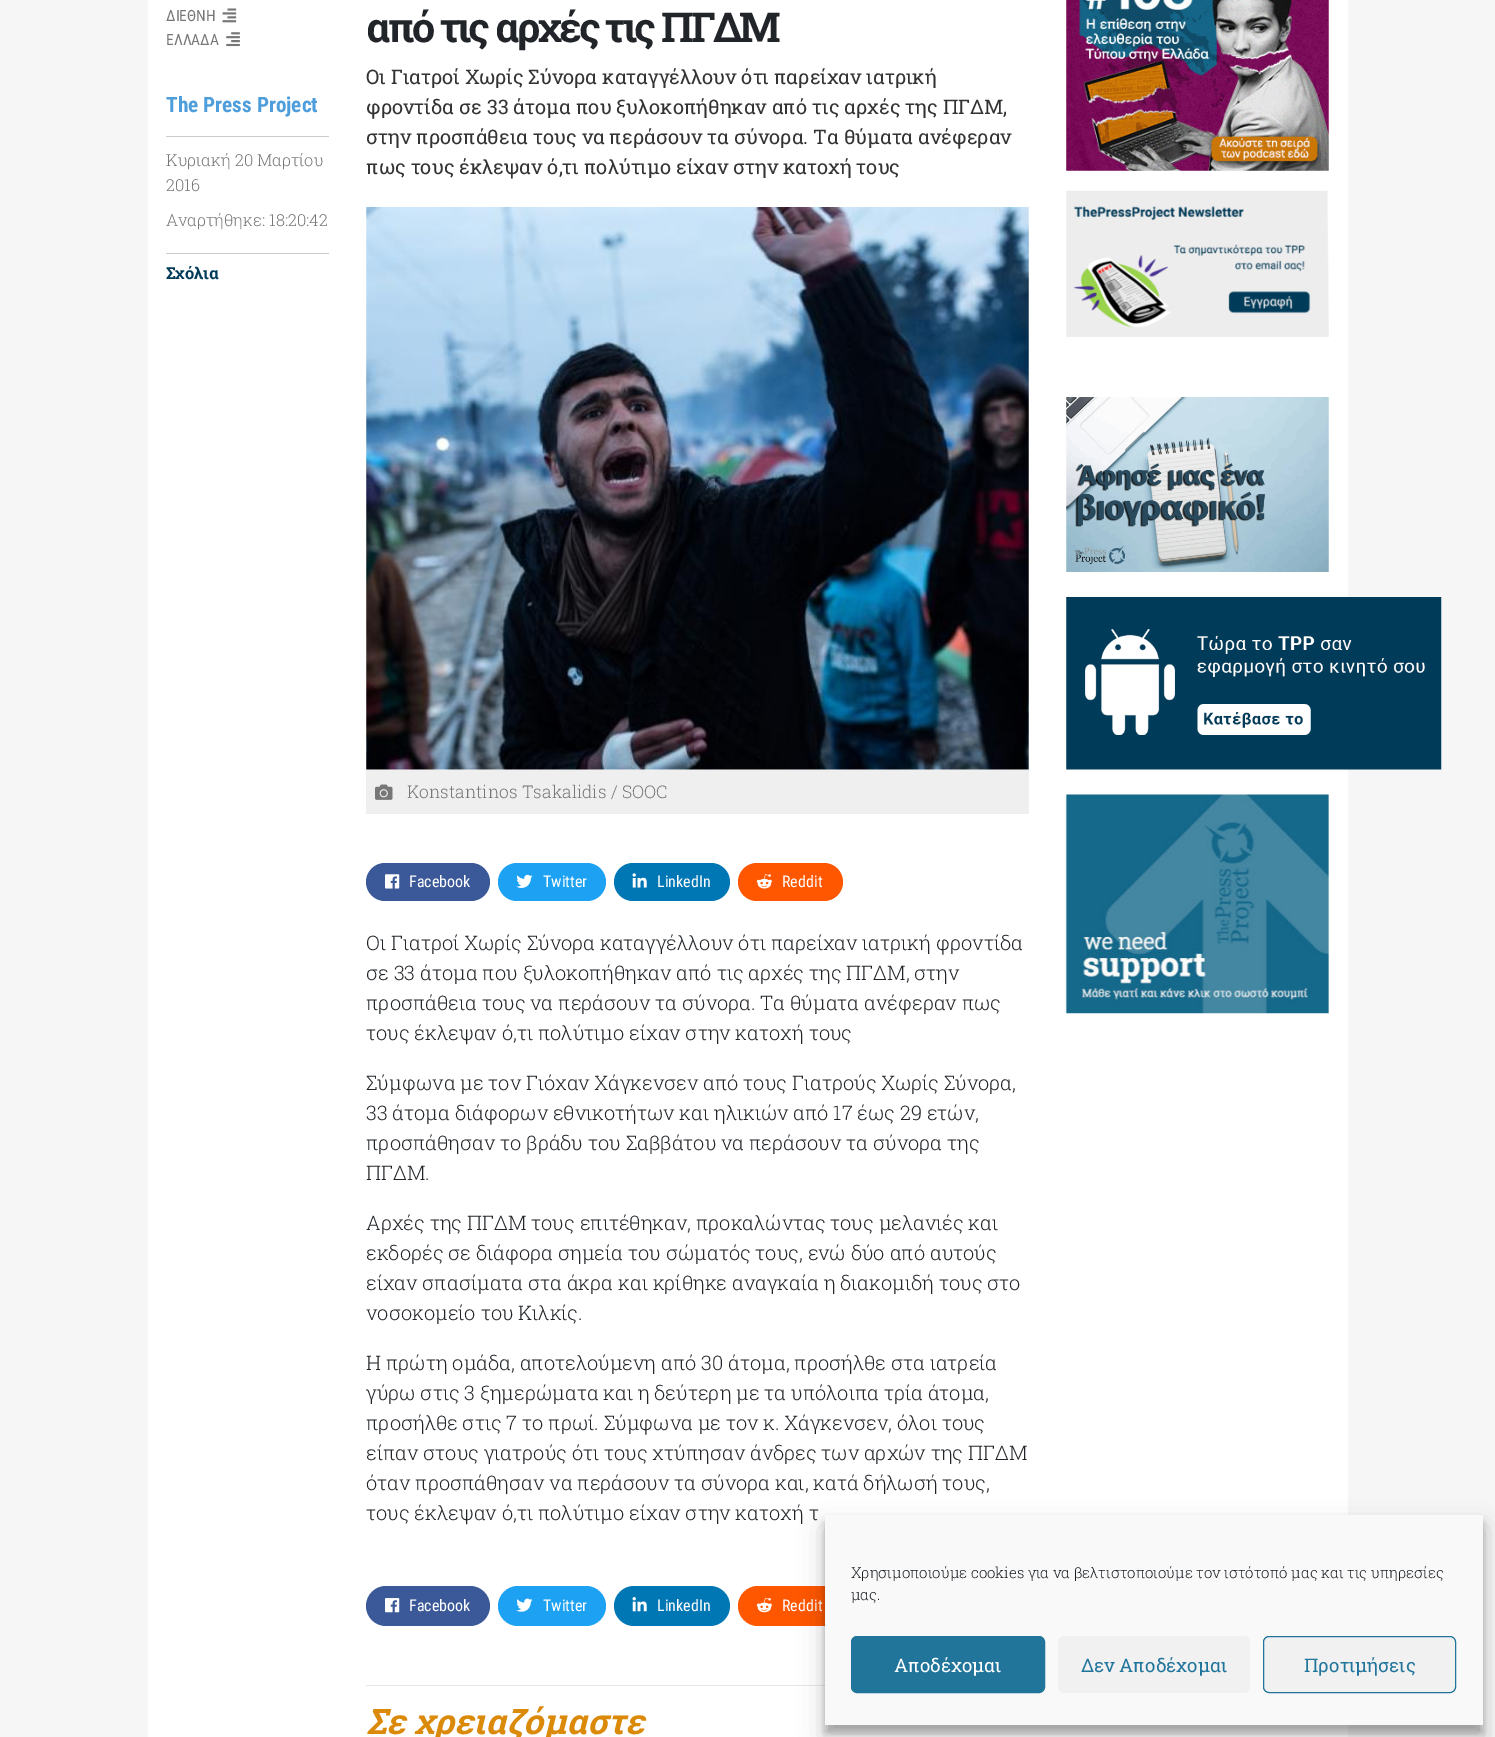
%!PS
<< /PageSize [1495 1737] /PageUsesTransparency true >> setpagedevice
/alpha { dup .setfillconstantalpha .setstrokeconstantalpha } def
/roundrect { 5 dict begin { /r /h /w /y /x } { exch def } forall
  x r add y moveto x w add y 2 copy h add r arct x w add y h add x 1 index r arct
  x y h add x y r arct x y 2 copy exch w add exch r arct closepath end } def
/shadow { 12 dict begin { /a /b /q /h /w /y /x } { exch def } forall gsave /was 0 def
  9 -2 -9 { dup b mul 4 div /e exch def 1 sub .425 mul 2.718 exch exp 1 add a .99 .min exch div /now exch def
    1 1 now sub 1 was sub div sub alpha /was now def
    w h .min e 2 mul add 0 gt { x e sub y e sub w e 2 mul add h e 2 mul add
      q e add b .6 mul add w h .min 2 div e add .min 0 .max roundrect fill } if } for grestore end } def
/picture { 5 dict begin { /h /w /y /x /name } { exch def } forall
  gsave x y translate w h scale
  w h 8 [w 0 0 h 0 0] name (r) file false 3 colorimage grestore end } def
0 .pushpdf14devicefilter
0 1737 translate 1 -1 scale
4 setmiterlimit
0.965 setgray
0 0 1495 1737 rectfill
1 setgray
148 0 1200 1737 rectfill
/RobotoCondensed-Regular [15.5 0 0 -15.5 0 0] selectfont
0.467 setgray
166 21 moveto (ΔΙΕΘΝΗ) show
(img1.rgb) 222 8 15 15 picture
166 45 moveto (ΕΛΛΑΔΑ) show
(img2.rgb) 226 32 14 15 picture
/RobotoCondensed-Bold [21.25 0 0 -21.25 0 0] selectfont
0.31 0.62 0.863 setrgbcolor
166 112 moveto (The Press Project) show
0.8 setgray
166 136 163 1 rectfill
166 253 163 1 rectfill
/RobotoSlab-Light [16.5 0 0 -16.5 0 0] selectfont
0.467 setgray
166 166 moveto (Κυριακή 20 Μαρτίου) show
166 191 moveto (2016) show
166 226 moveto (Αναρτήθηκε: 18:20:42) show
/RobotoSlab-Bold [16.5 0 0 -16.5 0 0] selectfont
0 0.231 0.349 setrgbcolor
166 279 moveto (Σχόλια) show
/RobotoSlab-Bold [41.25 0 0 -41.25 0 0] selectfont
0.129 0.145 0.161 setrgbcolor
366 42 moveto -2.6 0 (από τις αρχές τις ΠΓΔΜ) ashow
/RobotoSlab-Regular [20 0 0 -20 0 0] selectfont
0.2 setgray
366 84 moveto (Οι Γιατροί Χωρίς Σύνορα καταγγέλλουν ότι παρείχαν ιατρική) show
366 114 moveto (φροντίδα σε 33 άτομα που ξυλοκοπήθηκαν από τις αρχές της ΠΓΔΜ,) show
366 144 moveto (στην προσπάθεια τους να περάσουν τα σύνορα. Τα θύματα ανέφεραν) show
366 174 moveto (πως τους έκλεψαν ό,τι πολύτιμο είχαν στην κατοχή τους) show
(img3.rgb) 366 207 663 563 picture
0.937 setgray
366 770 663 44 rectfill
(img4.rgb) 375 784 18 16 picture
/RobotoSlab-Light [17.5 0 0 -17.5 0 0] selectfont
0.467 setgray
407 798 moveto (Konstantinos Tsakalidis / SOOC) show
0.231 0.349 0.596 setrgbcolor
366 863 124 38 19 roundrect fill
(img5.rgb) 385 874 15 15 picture
/RobotoCondensed-Regular [16 0 0 -16 0 0] selectfont
1 setgray
409 887 moveto (Facebook) show
0.114 0.631 0.949 setrgbcolor
498 863 108 38 19 roundrect fill
(img6.rgb) 516 874 17 14 picture
1 setgray
543 887 moveto (Twitter) show
0 0.467 0.71 setrgbcolor
614 863 116 38 19 roundrect fill
(img7.rgb) 632 873 15 15 picture
1 setgray
657 887 moveto (LinkedIn) show
1 0.341 0 setrgbcolor
738 863 105 38 19 roundrect fill
(img8.rgb) 756 874 16 15 picture
1 setgray
782 887 moveto (Reddit) show
/RobotoSlab-Light [20 0 0 -20 0 0] selectfont
0.129 0.145 0.161 setrgbcolor
366 950 moveto (Οι Γιατροί Χωρίς Σύνορα καταγγέλλουν ότι παρείχαν ιατρική φροντίδα) show
366 980 moveto (σε 33 άτομα που ξυλοκοπήθηκαν από τις αρχές της ΠΓΔΜ, στην) show
366 1010 moveto (προσπάθεια τους να περάσουν τα σύνορα. Τα θύματα ανέφεραν πως) show
366 1040 moveto (τους έκλεψαν ό,τι πολύτιμο είχαν στην κατοχή τους) show
366 1090 moveto (Σύμφωνα με τον Γιόχαν Χάγκενσεν από τους Γιατρούς Χωρίς Σύνορα,) show
366 1120 moveto (33 άτομα διάφορων εθνικοτήτων και ηλικιών από 17 έως 29 ετών,) show
366 1150 moveto (προσπάθησαν το βράδυ του Σαββάτου να περάσουν τα σύνορα της) show
366 1180 moveto (ΠΓΔΜ.) show
366 1230 moveto (Αρχές της ΠΓΔΜ τους επιτέθηκαν, προκαλώντας τους μελανιές και) show
366 1260 moveto (εκδορές σε διάφορα σημεία του σώματός τους, ενώ δύο από αυτούς) show
366 1290 moveto (είχαν σπασίματα στα άκρα και κρίθηκε αναγκαία η διακομιδή τους στο) show
366 1320 moveto (νοσοκομείο του Κιλκίς.) show
366 1370 moveto (Η πρώτη ομάδα, αποτελούμενη από 30 άτομα, προσήλθε στα ιατρεία) show
366 1400 moveto (γύρω στις 3 ξημερώματα και η δεύτερη με τα υπόλοιπα τρία άτομα,) show
366 1430 moveto (προσήλθε στις 7 το πρωί. Σύμφωνα με τον κ. Χάγκενσεν, όλοι τους) show
366 1460 moveto (είπαν στους γιατρούς ότι τους χτύπησαν άνδρες των αρχών της ΠΓΔΜ) show
366 1490 moveto (όταν προσπάθησαν να περάσουν τα σύνορα και, κατά δήλωσή τους,) show
366 1520 moveto (τους έκλεψαν ό,τι πολύτιμο είχαν στην κατοχή τ) show
0.231 0.349 0.596 setrgbcolor
366 1586 124 40 20 roundrect fill
(img9.rgb) 385 1598 15 15 picture
/RobotoCondensed-Regular [16 0 0 -16 0 0] selectfont
1 setgray
409 1611 moveto (Facebook) show
0.114 0.631 0.949 setrgbcolor
498 1586 108 40 20 roundrect fill
(img10.rgb) 516 1598 17 14 picture
1 setgray
543 1611 moveto (Twitter) show
0 0.467 0.71 setrgbcolor
614 1586 116 40 20 roundrect fill
(img11.rgb) 632 1597 15 15 picture
1 setgray
657 1611 moveto (LinkedIn) show
1 0.341 0 setrgbcolor
738 1586 105 40 20 roundrect fill
(img12.rgb) 756 1598 16 15 picture
1 setgray
782 1611 moveto (Reddit) show
0.902 setgray
366 1685 459 1 rectfill
/RobotoSlab-BoldItalic [35 0 0 -35 0 0] selectfont
0.859 0.537 0.031 setrgbcolor
366 1734 moveto (Σε χρειαζόμαστε) show
(img13.rgb) 1066 0 263 171 picture
(img14.rgb) 1066 190 263 147 picture
(img15.rgb) 1066 397 263 175 picture
(img16.rgb) 1066 597 376 173 picture
(img17.rgb) 1065 794 264 220 picture
0 setgray
825 1523 658 210 0 4 0.23 shadow
825 1528 658 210 0 12.5 0.19 shadow
0.976 setgray
825 1515 658 210 rectfill
/RobotoSlab-Light [15 0 0 -15 0 0] selectfont
0.098 0.118 0.137 setrgbcolor
851 1578 moveto (Χρησιμοποιούμε cookies για να βελτιστοποιούμε τον ιστότοπό μας και τις υπηρεσίες) show
851 1600 moveto (μας.) show
0.129 0.459 0.608 setrgbcolor
851.5 1636.5 193 56 5.5 roundrect gsave fill grestore
stroke
/RobotoSlab-Regular [18.75 0 0 -18.75 0 0] selectfont
1 setgray
894 1672 moveto (Αποδέχομαι) show
0.945 setgray
1058 1636 192 57 6 roundrect fill
0.129 0.459 0.608 setrgbcolor
1081 1672 moveto (Δεν Αποδέχομαι) show
0.945 setgray
1263.5 1636.5 192 56 5.5 roundrect gsave fill grestore
0.129 0.459 0.608 setrgbcolor
stroke
1304 1672 moveto (Προτιμήσεις) show
.poppdf14devicefilter showpage
